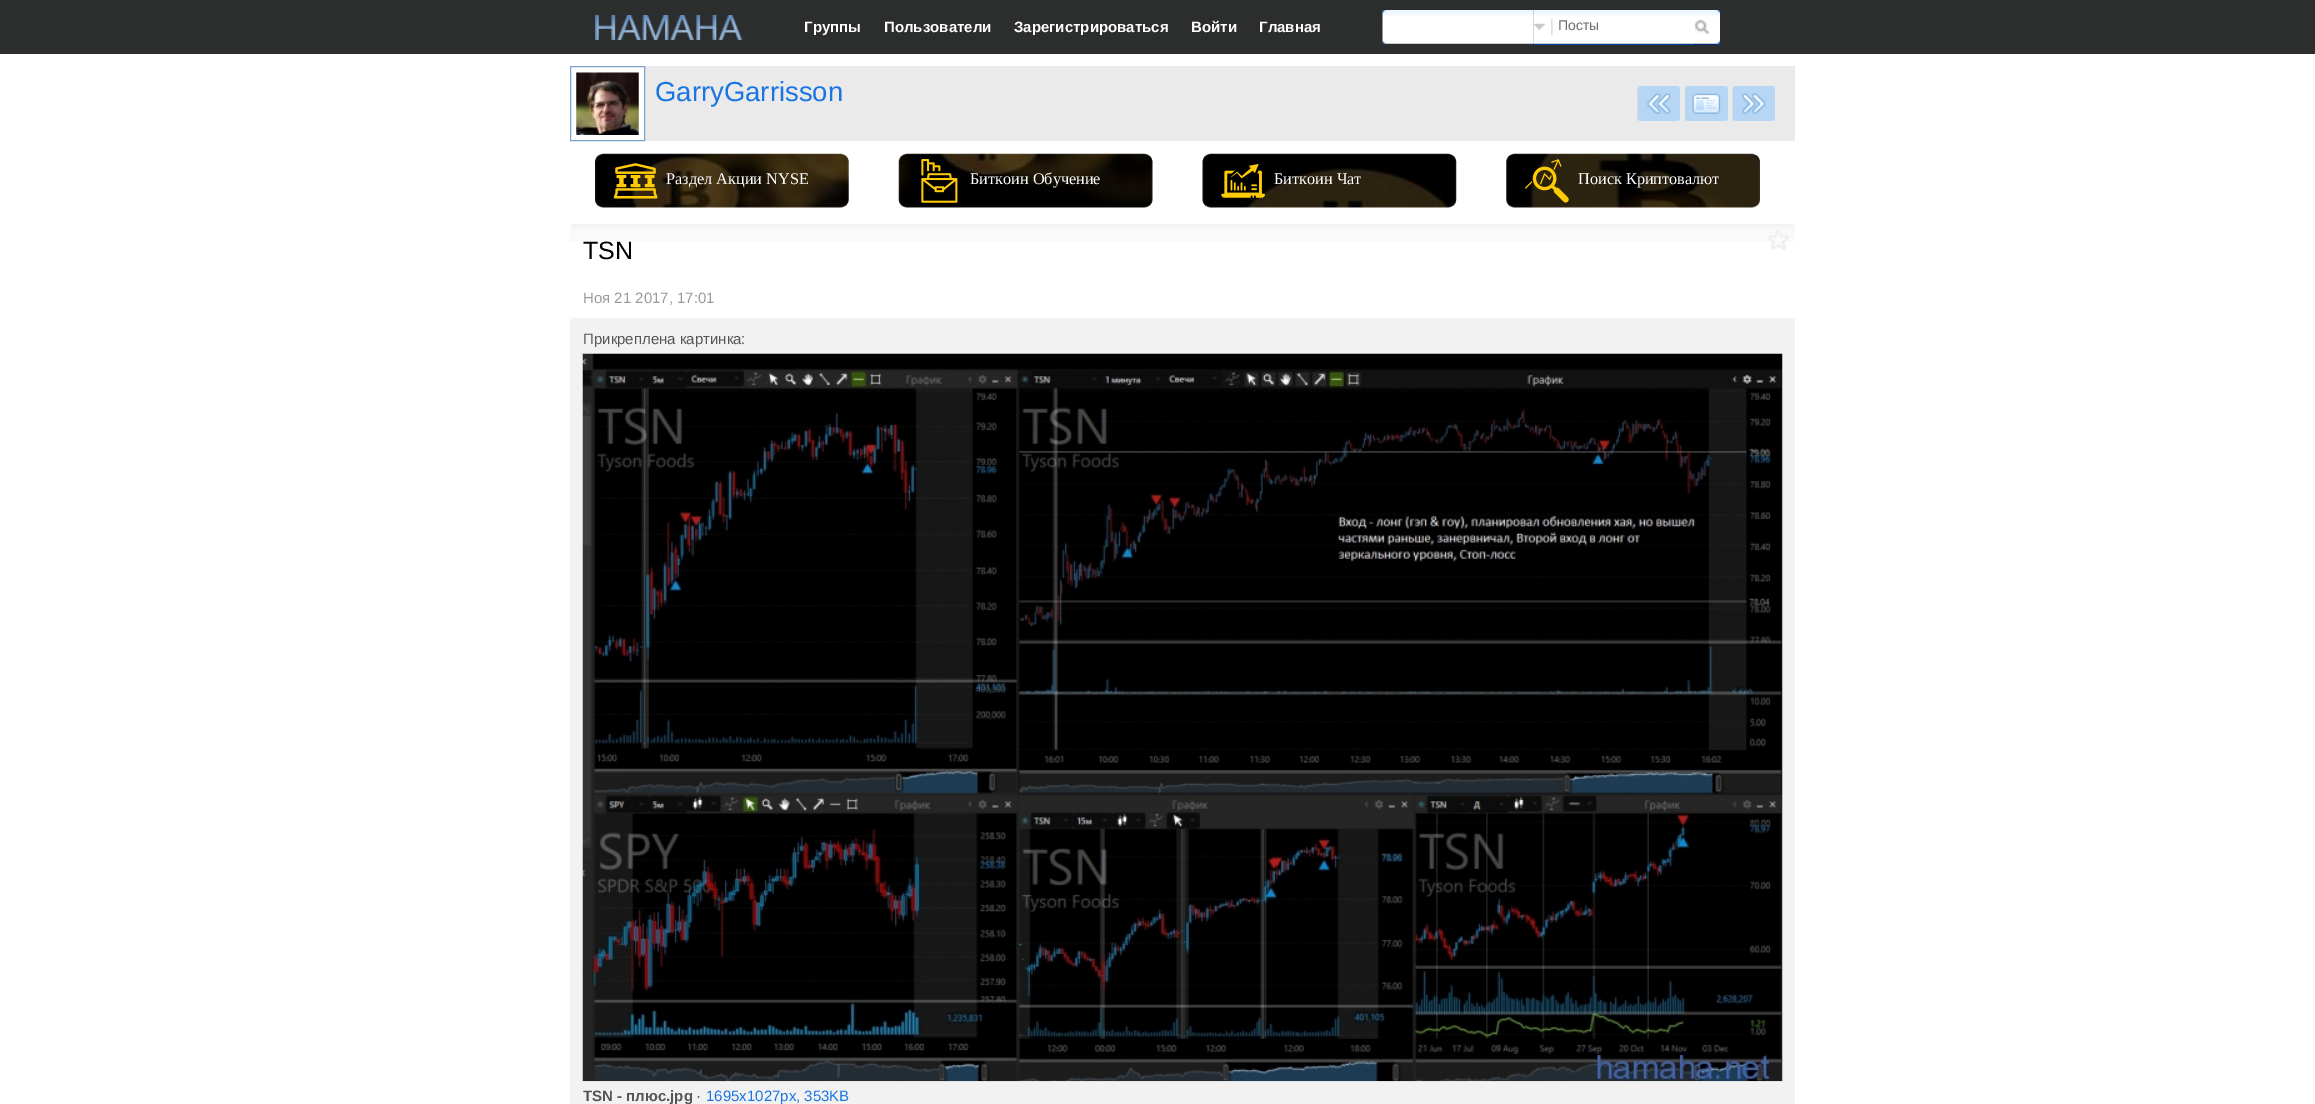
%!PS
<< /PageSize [2315 1104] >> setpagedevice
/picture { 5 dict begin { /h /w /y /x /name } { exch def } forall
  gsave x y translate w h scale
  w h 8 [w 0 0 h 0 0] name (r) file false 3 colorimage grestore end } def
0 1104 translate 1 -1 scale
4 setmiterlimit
1 setgray
0 0 2315 1104 rectfill
0.173 0.176 0.176 setrgbcolor
0 0 2315 54 rectfill
(img1.rgb) 595 15 148 25 picture
/LiberationSans-Bold [15 0 0 -15 0 0] selectfont
1 setgray
804 32 moveto (Группы) show
884 32 moveto (Пользователи) show
1014 32 moveto (Зарегистрироваться) show
1191 32 moveto (Войти) show
1259 32 moveto (Главная) show
(img2.rgb) 1382 10 152 34 picture
1692 10 1 34 rectfill
(img3.rgb) 1533 10 160 35 picture
0 0.255 0.561 setrgbcolor
1534 44 159 1 rectfill
(img4.rgb) 1534 18 19 17 picture
/LiberationSans-Regular [14 0 0 -14 0 0] selectfont
0.435 setgray
1558 30 moveto (Посты) show
(img5.rgb) 1693 10 27 35 picture
0.918 setgray
645 66 1150 75 rectfill
0.467 0.647 0.816 setrgbcolor
570.5 66.5 74 74 rectstroke
(img6.rgb) 576 72 63 63 picture
/LiberationSans-Regular [27.5 0 0 -27.5 0 0] selectfont
0.098 0.459 0.882 setrgbcolor
655 101 moveto (GarryGarrisson) show
0.714 0.839 0.953 setrgbcolor
1638 86 42 1 rectfill
(img7.rgb) 1637 86 43 35 picture
1685 86 43 35 rectfill
(img8.rgb) 1685 86 43 35 picture
1733 86 42 1 rectfill
(img9.rgb) 1732 86 43 35 picture
(img10.rgb) 594 153 255 55 picture
(img11.rgb) 613 163 45 36 picture
/LiberationSerif-Regular [16.25 0 0 -16.25 0 0] selectfont
1 setgray
666 184 moveto (Раздел Акции NYSE) show
(img12.rgb) 898 153 255 55 picture
(img13.rgb) 921 159 37 44 picture
970 184 moveto (Биткоин Обучение) show
(img14.rgb) 1202 153 255 55 picture
(img15.rgb) 1221 164 44 34 picture
1274 184 moveto (Биткоин Чат) show
(img16.rgb) 1506 153 255 55 picture
(img17.rgb) 1525 159 44 44 picture
1578 184 moveto (Поиск Криптовалют) show
(img18.rgb) 578 224 1184 17 picture
(img19.rgb) 570 224 8 18 picture
/LiberationSans-Regular [25 0 0 -25 0 0] selectfont
0 setgray
583 259 moveto (TSN) show
(img20.rgb) 1762 224 33 18 picture
(img21.rgb) 1768 229 21 21 picture
/LiberationSans-Regular [15 0 0 -15 0 0] selectfont
0.6 setgray
583 303 moveto (Ноя 21 2017, 17:01) show
0.949 setgray
570 318 1225 786 rectfill
(img22.rgb) 570 317 7 4 picture
0.961 setgray
1792 318 3 3 rectfill
0.333 setgray
583 344 moveto (Прикреплена картинка:) show
(img23.rgb) 582 353 1201 729 picture
gsave
583 1088 1200 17 rectclip
/LiberationSans-Bold [15 0 0 -15 0 0] selectfont
583 1101 moveto (TSN - плюс.jpg) show
grestore
696 1101 moveto (·) show
0.098 0.459 0.882 setrgbcolor
706 1101 moveto (1695x1027px, 353KB) show
showpage
